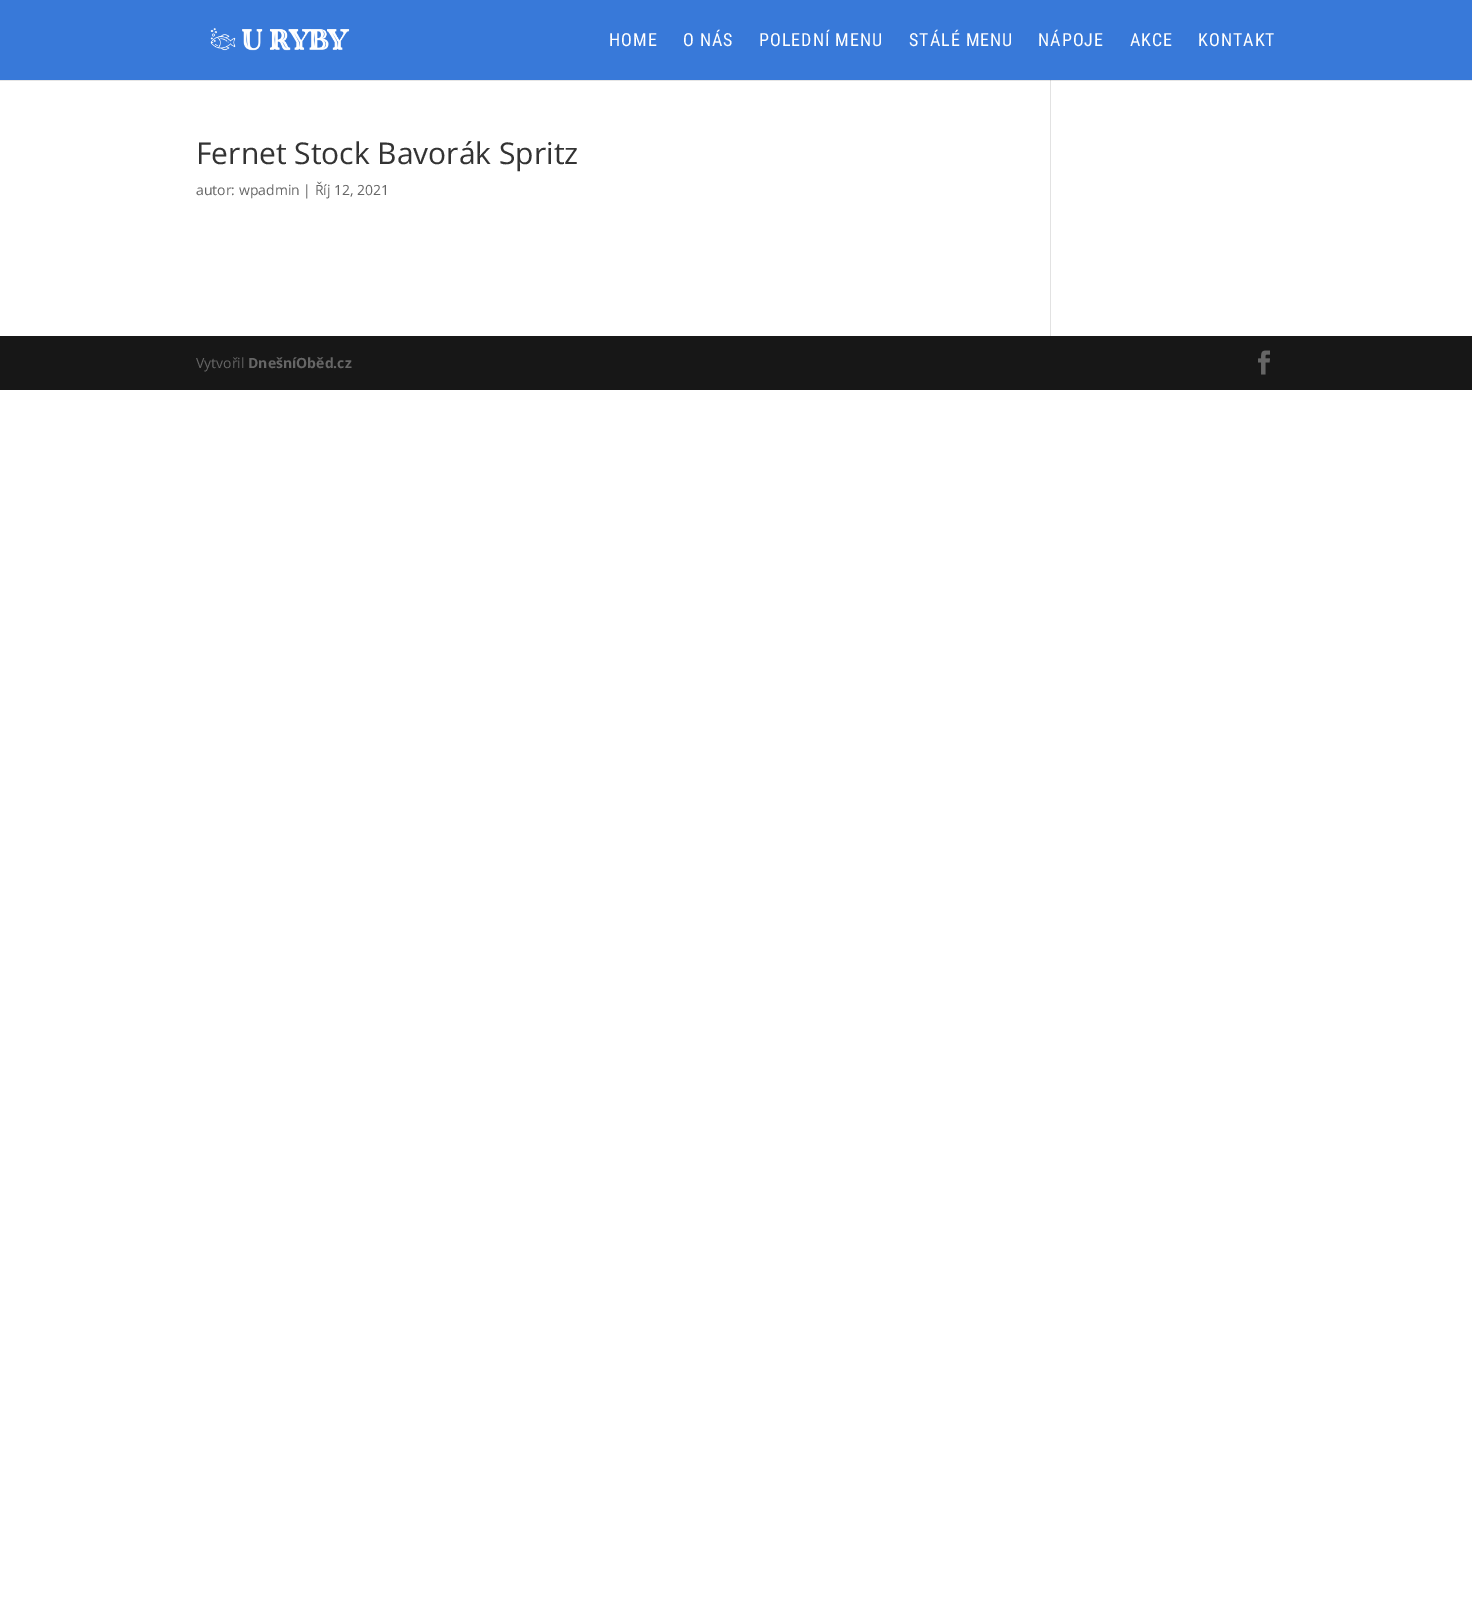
%!PS
<< /PageSize [1472 1615] >> setpagedevice
/picture { 5 dict begin { /h /w /y /x /name } { exch def } forall
  gsave x y translate w h scale
  w h 8 [w 0 0 h 0 0] name (r) file false 3 colorimage grestore end } def
0 1615 translate 1 -1 scale
4 setmiterlimit
1 setgray
0 0 1472 1615 rectfill
0.902 setgray
0 80 1472 1 rectfill
0.22 0.475 0.851 setrgbcolor
0 0 1472 80 rectfill
(img1.rgb) 210 28 140 23 picture
/RobotoCondensed-Regular [18 0 0 -18 0 0] selectfont
1 setgray
609 46 moveto 1 0 (HOME) ashow
683 46 moveto 1 0 (O NÁS) ashow
759 46 moveto 1 0 (POLEDNÍ MENU) ashow
909 46 moveto 1 0 (STÁLÉ MENU) ashow
1038 46 moveto 1 0 (NÁPOJE) ashow
1130 46 moveto 1 0 (AKCE) ashow
1198 46 moveto 1 0 (KONTAKT) ashow
/OpenSans-Regular [30 0 0 -30 0 0] selectfont
0.2 setgray
196 164 moveto (Fernet Stock Bavorák Spritz) show
/OpenSans-Regular [14 0 0 -14 0 0] selectfont
0.4 setgray
196 195 moveto (autor: wpadmin | Říj 12, 2021) show
0.886 setgray
1050 80 1 256 rectfill
0.796 setgray
1050 80 1 1 rectfill
0.09 setgray
0 336 1472 54 rectfill
0.4 setgray
196 368 moveto (Vytvořil) show
/OpenSans-Bold [14 0 0 -14 0 0] selectfont
248 368 moveto (DnešníOběd.cz) show
(img2.rgb) 1258 350 12 25 picture
showpage
